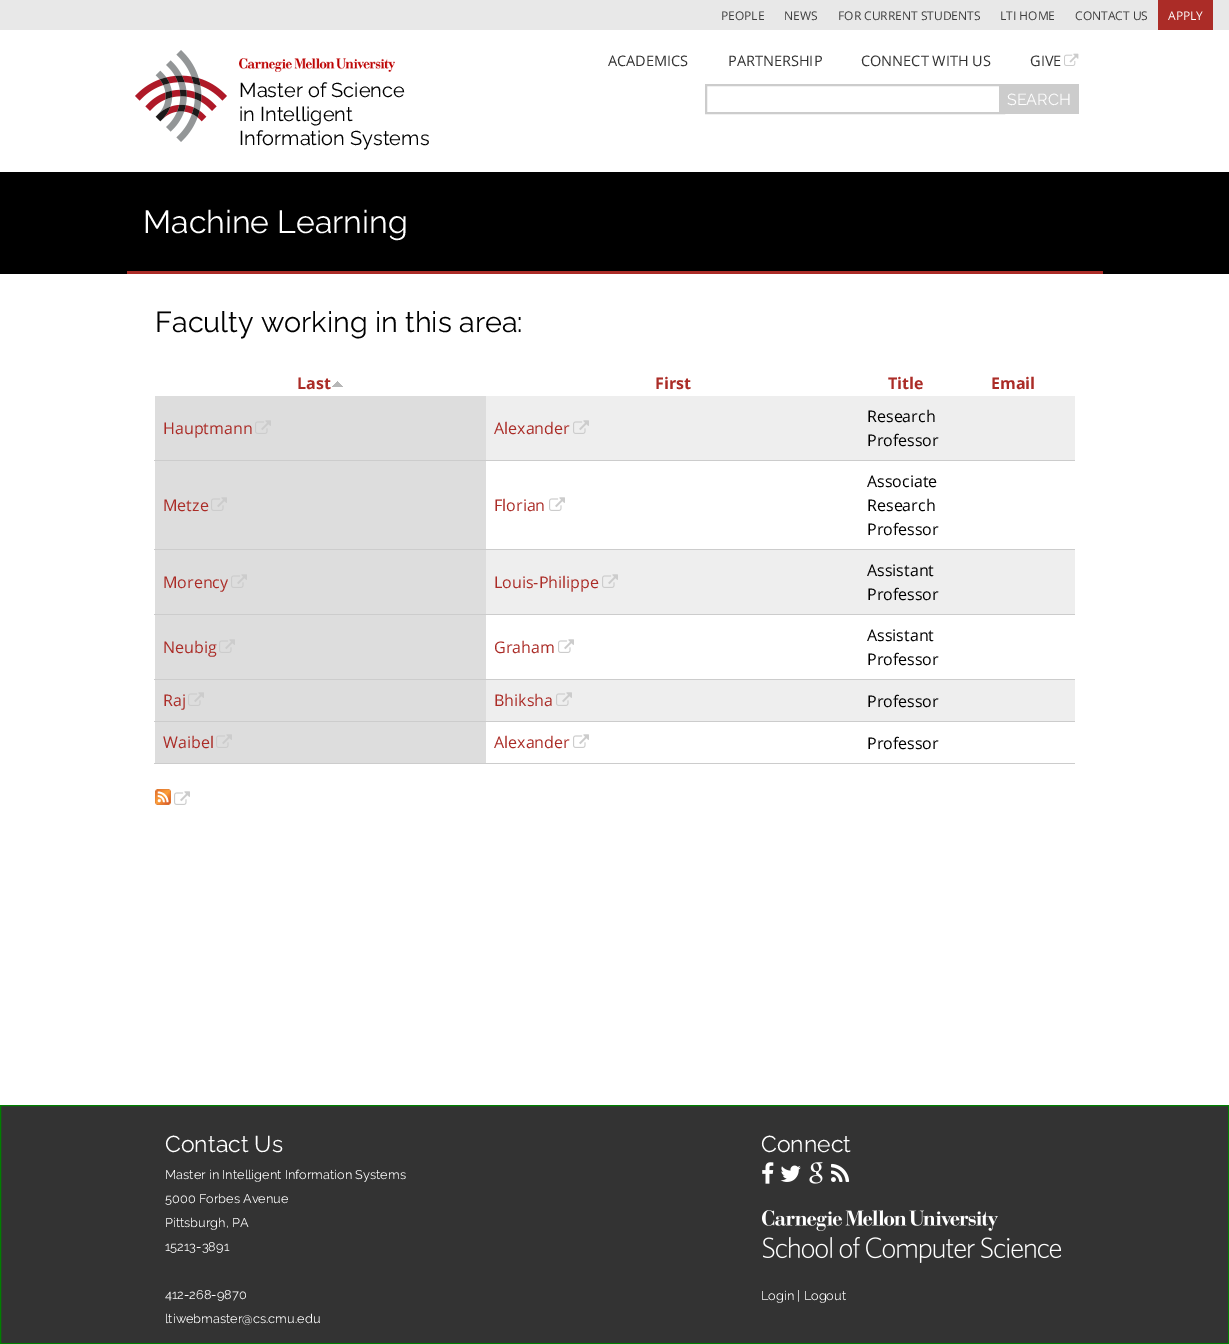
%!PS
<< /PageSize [1229 1344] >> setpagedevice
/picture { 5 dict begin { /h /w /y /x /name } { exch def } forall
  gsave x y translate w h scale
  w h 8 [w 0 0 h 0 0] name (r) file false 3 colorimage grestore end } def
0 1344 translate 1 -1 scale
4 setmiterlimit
1 setgray
0 0 1229 1344 rectfill
0.91 setgray
0 0 1229 30 rectfill
/OpenSans-Regular [12 0 0 -12 0 0] selectfont
0.247 setgray
721 20 moveto (PEOPLE) show
784 20 moveto (NEWS) show
838 20 moveto (FOR CURRENT STUDENTS) show
1000 20 moveto (LTI HOME) show
1075 20 moveto (CONTACT US) show
0.671 0.173 0.153 setrgbcolor
1158 0 55 30 rectfill
1 setgray
1168 20 moveto (APPLY) show
(img1.rgb) 135 50 92 92 picture
(img2.rgb) 239 58 156 14 picture
/Raleway-Thin [20 0 0 -20 0 0] selectfont
0 setgray
239 97 moveto (Master of Science) show
239 121 moveto (in Intelligent) show
239 145 moveto (Information Systems) show
/OpenSans-Regular [14.5 0 0 -14.5 0 0] selectfont
0.2 setgray
608 66 moveto (ACADEMICS) show
728 66 moveto (PARTNERSHIP) show
861 66 moveto (CONNECT WITH US) show
1030 66 moveto (GIVE) show
(img3.rgb) 1064 53 15 13 picture
0.8 setgray
2 setlinewidth
706 85 298 28 rectstroke
999 84 80 30 rectfill
/Raleway-Thin [16 0 0 -16 0 0] selectfont
1 setgray
1007 105 moveto (SEARCH) show
0 setgray
0 172 1229 102 rectfill
0.671 0.173 0.153 setrgbcolor
127 271 976 3 rectfill
/Raleway-Thin [32 0 0 -32 0 0] selectfont
1 setgray
143 233 moveto (Machine Learning) show
/Raleway-Thin [28.75 0 0 -28.75 0 0] selectfont
0 setgray
155 332 moveto (Faculty working in this area:) show
/OpenSans-Bold [16 0 0 -16 0 0] selectfont
0.671 0.173 0.153 setrgbcolor
297 389 moveto (Last) show
(img4.rgb) 332 381 11 6 picture
655 389 moveto (First) show
888 389 moveto (Title) show
991 389 moveto (Email) show
0.933 setgray
486 396 589 64 rectfill
0.8 setgray
154 460 921 1 rectfill
0.867 setgray
155 396 331 64 rectfill
/OpenSans-Regular [16 0 0 -16 0 0] selectfont
0.671 0.173 0.153 setrgbcolor
163 434 moveto (Hauptmann) show
(img5.rgb) 255 420 16 14 picture
494 434 moveto (Alexander) show
(img6.rgb) 573 420 16 14 picture
0 setgray
867 422 moveto (Research) show
867 446 moveto (Professor) show
0.8 setgray
154 549 921 1 rectfill
0.867 setgray
155 461 331 88 rectfill
0.671 0.173 0.153 setrgbcolor
163 511 moveto (Metze) show
(img5.rgb) 211 497 16 14 picture
494 511 moveto (Florian) show
(img7.rgb) 549 497 16 14 picture
0 setgray
867 487 moveto (Associate) show
867 511 moveto (Research) show
867 535 moveto (Professor) show
0.933 setgray
486 550 589 64 rectfill
0.8 setgray
154 614 921 1 rectfill
0.867 setgray
155 550 331 64 rectfill
0.671 0.173 0.153 setrgbcolor
163 588 moveto (Morency) show
(img5.rgb) 231 574 16 14 picture
494 588 moveto (Louis-Philippe) show
(img6.rgb) 602 574 16 14 picture
0 setgray
867 576 moveto (Assistant) show
867 600 moveto (Professor) show
0.8 setgray
154 679 921 1 rectfill
0.867 setgray
155 615 331 64 rectfill
0.671 0.173 0.153 setrgbcolor
163 653 moveto (Neubig) show
(img5.rgb) 219 639 16 14 picture
494 653 moveto (Graham) show
(img7.rgb) 558 639 16 14 picture
0 setgray
867 641 moveto (Assistant) show
867 665 moveto (Professor) show
0.933 setgray
486 680 589 41 rectfill
0.8 setgray
154 721 921 1 rectfill
0.867 setgray
155 680 331 41 rectfill
0.671 0.173 0.153 setrgbcolor
163 706 moveto (Raj) show
(img5.rgb) 188 692 16 14 picture
494 706 moveto (Bhiksha) show
(img6.rgb) 556 692 16 14 picture
0 setgray
867 707 moveto (Professor) show
0.8 setgray
154 763 921 1 rectfill
0.867 setgray
155 722 331 41 rectfill
0.671 0.173 0.153 setrgbcolor
163 748 moveto (Waibel) show
(img5.rgb) 216 734 16 14 picture
494 748 moveto (Alexander) show
(img7.rgb) 573 734 16 14 picture
0 setgray
867 749 moveto (Professor) show
(img8.rgb) 155 789 16 16 picture
(img7.rgb) 174 791 16 14 picture
0.2 setgray
newpath 0.5 1105.5 moveto 1228.5 1105.5 lineto 1228.5 1343.5 lineto 0.5 1343.5 lineto closepath gsave fill grestore
0 0.502 0 setrgbcolor
1 setlinewidth
stroke
/Raleway-Thin [23 0 0 -23 0 0] selectfont
1 setgray
165 1152 moveto (Contact Us) show
/Raleway-Thin [12.75 0 0 -12.75 0 0] selectfont
165 1179 moveto (Master in Intelligent Information Systems) show
165 1203 moveto (5000 Forbes Avenue) show
165 1227 moveto (Pittsburgh, PA) show
165 1251 moveto (15213-3891) show
165 1299 moveto (412-268-9870) show
165 1323 moveto (ltiwebmaster@cs.cmu.edu) show
/Raleway-Thin [23 0 0 -23 0 0] selectfont
761 1152 moveto (Connect) show
(img9.rgb) 762 1162 12 22 picture
(img10.rgb) 780 1165 21 17 picture
(img11.rgb) 809 1162 14 22 picture
(img12.rgb) 831 1163 19 19 picture
(img13.rgb) 762 1210 299 53 picture
/Raleway-Thin [12.75 0 0 -12.75 0 0] selectfont
761 1300 moveto (Login | Logout) show
showpage
